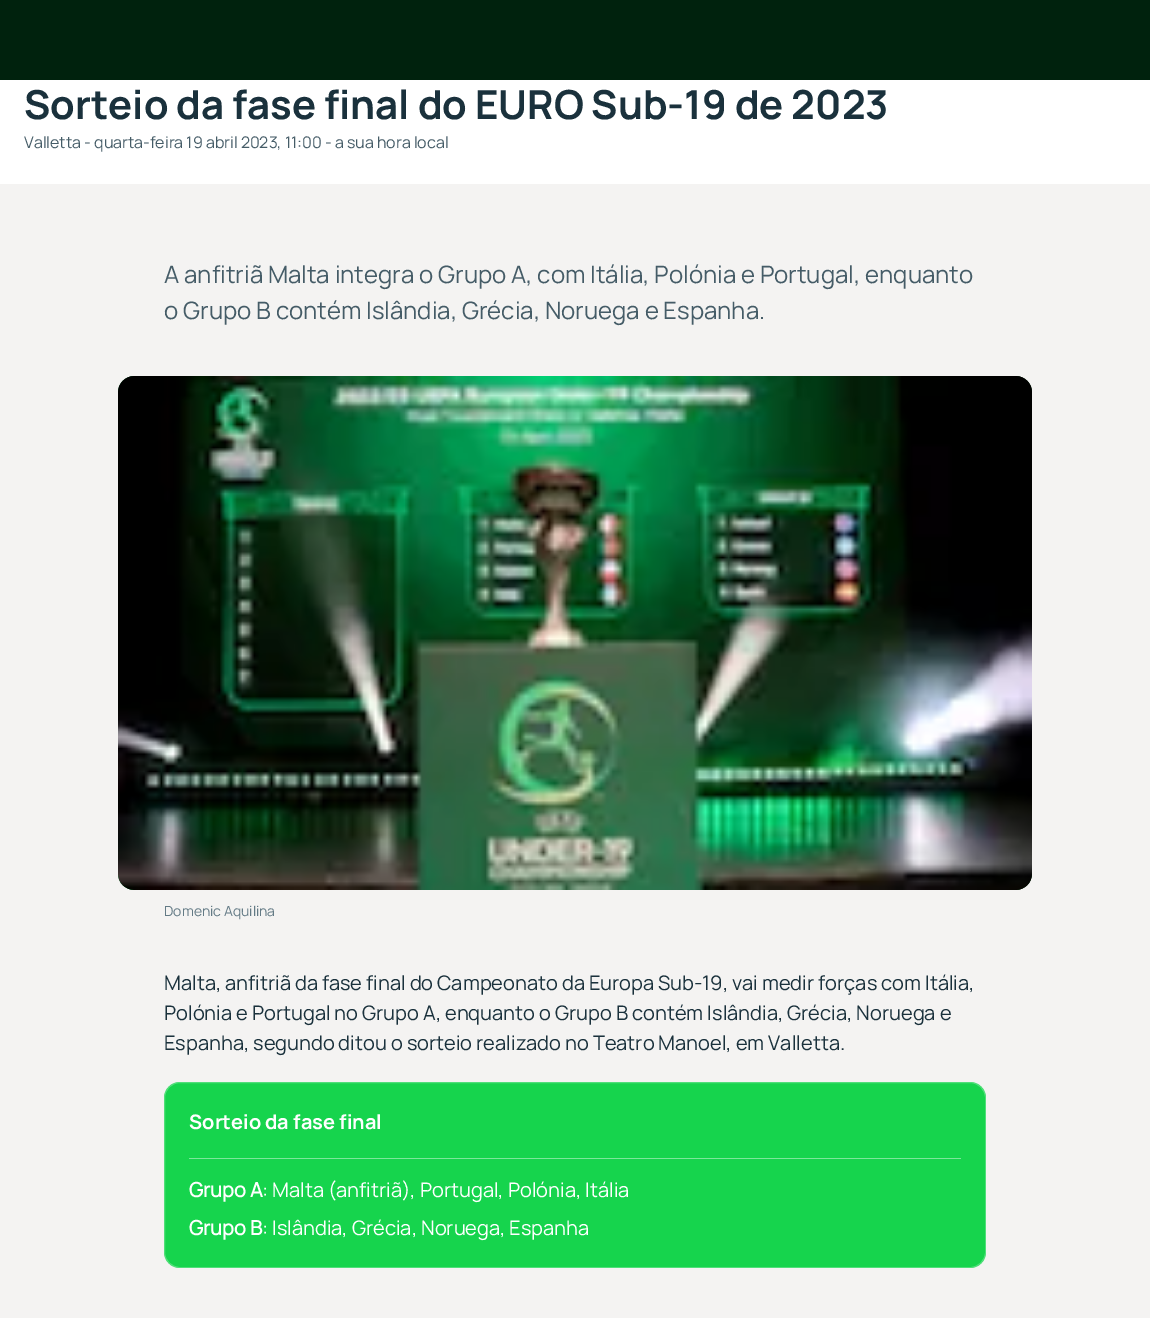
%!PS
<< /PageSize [1150 1318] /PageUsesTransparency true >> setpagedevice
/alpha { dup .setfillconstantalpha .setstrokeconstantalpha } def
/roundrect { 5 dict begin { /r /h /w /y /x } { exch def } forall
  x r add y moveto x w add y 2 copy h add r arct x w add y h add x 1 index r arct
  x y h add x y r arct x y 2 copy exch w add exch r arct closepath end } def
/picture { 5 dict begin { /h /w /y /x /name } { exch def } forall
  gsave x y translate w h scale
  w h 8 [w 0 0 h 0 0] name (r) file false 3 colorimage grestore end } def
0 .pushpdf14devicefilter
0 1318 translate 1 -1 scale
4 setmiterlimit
1 setgray
0 0 1150 1318 rectfill
0 0.133 0.051 setrgbcolor
0 0 1150 80 rectfill
/Manrope-Bold [40 0 0 -40 0 0] selectfont
0.102 0.192 0.235 setrgbcolor
24 119 moveto (Sorteio da fase final do EURO Sub-19 de 2023) show
/Manrope-Regular [16 0 0 -16 0 0] selectfont
0.271 0.361 0.404 setrgbcolor
24 148 moveto (Valletta - quarta-feira 19 abril 2023, 11:00 - a sua hora local) show
0.957 0.953 0.949 setrgbcolor
0 184 1150 1134 rectfill
/Manrope-Regular [24 0 0 -24 0 0] selectfont
0.271 0.361 0.404 setrgbcolor
164 283 moveto (A anfitriã Malta integra o Grupo A, com Itália, Polónia e Portugal, enquanto) show
164 319 moveto (o Grupo B contém Islândia, Grécia, Noruega e Espanha.) show
(img1.rgb) 118 376 914 514 picture
(img2.rgb) 118 376 914 514 picture
/Manrope-Regular [14 0 0 -14 0 0] selectfont
0.388 0.478 0.522 setrgbcolor
164 916 moveto (Domenic Aquilina) show
/Manrope-Regular [20 0 0 -20 0 0] selectfont
0.102 0.192 0.235 setrgbcolor
164 990 moveto (Malta, anfitriã da fase final do Campeonato da Europa Sub-19, vai medir forças com Itália,) show
164 1020 moveto (Polónia e Portugal no Grupo A, enquanto o Grupo B contém Islândia, Grécia, Noruega e) show
164 1050 moveto (Espanha, segundo ditou o sorteio realizado no Teatro Manoel, em Valletta.) show
0.086 0.831 0.302 setrgbcolor
164 1082 822 186 16 roundrect fill
0.25 alpha
1 setgray
164.5 1082.5 821 185 15.5 roundrect stroke
/Manrope-Bold [20 0 0 -20 0 0] selectfont
1 alpha
189 1129 moveto (Sorteio da fase final) show
0.486 0.906 0.608 setrgbcolor
189 1158 772 1 rectfill
/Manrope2-Bold [20 0 0 -20 0 0] selectfont
1 setgray
189 1197 moveto (Grupo A) show
/Manrope-Regular [20 0 0 -20 0 0] selectfont
262 1197 moveto (: Malta \(anfitriã\), Portugal, Polónia, Itália) show
/Manrope2-Bold [20 0 0 -20 0 0] selectfont
189 1235 moveto (Grupo B) show
/Manrope-Regular [20 0 0 -20 0 0] selectfont
262 1235 moveto (: Islândia, Grécia, Noruega, Espanha) show
.poppdf14devicefilter showpage
